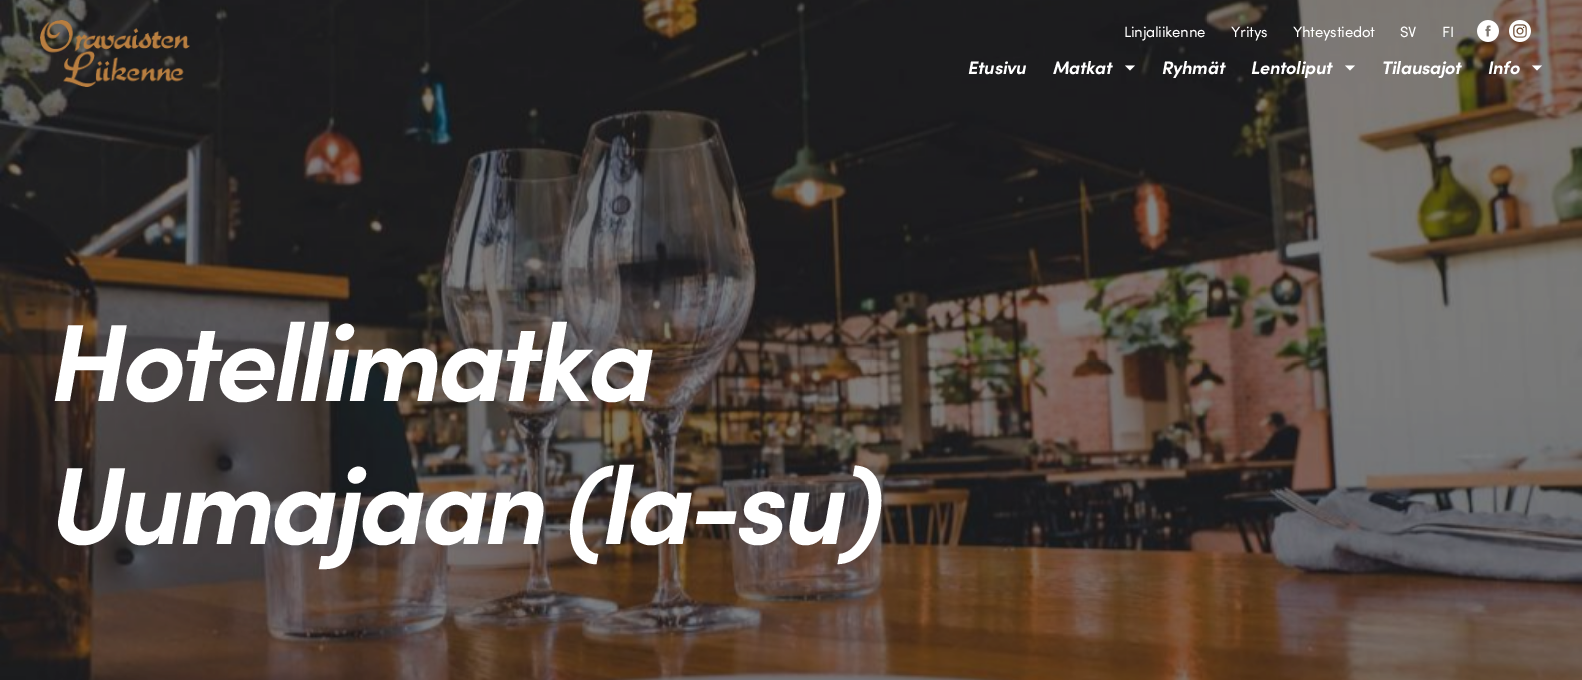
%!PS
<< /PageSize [1582 680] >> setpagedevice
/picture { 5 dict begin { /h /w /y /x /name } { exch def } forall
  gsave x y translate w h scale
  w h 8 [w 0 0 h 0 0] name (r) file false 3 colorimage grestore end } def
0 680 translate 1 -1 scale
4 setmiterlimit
1 setgray
0 0 1582 680 rectfill
(img4.rgb) 0 0 1582 680 picture
(img1.rgb) 40 20 150 67 picture
/Sofia-Regular [15 0 0 -15 0 0] selectfont
1124 37 moveto -0.25 0 (Linjaliikenne) ashow
1231 37 moveto -0.25 0 (Yritys) ashow
1293 37 moveto -0.25 0 (Yhteystiedot) ashow
1400 37 moveto -0.25 0 (SV) ashow
1442 37 moveto -0.25 0 (FI) ashow
(img2.rgb) 1477 20 22 22 picture
(img3.rgb) 1509 20 22 22 picture
/Sofia-BoldItalic [18 0 0 -18 0 0] selectfont
968 74 moveto -0.25 0 (Etusivu) ashow
1053 74 moveto -0.25 0 (Matkat) ashow
newpath 1125 65.5 moveto 1135 65.5 lineto 1130 70.5 lineto closepath fill
1162 74 moveto -0.25 0 (Ryhmät) ashow
1251 74 moveto -0.25 0 (Lentoliput) ashow
newpath 1345 65.5 moveto 1355 65.5 lineto 1350 70.5 lineto closepath fill
1382 74 moveto -0.25 0 (Tilausajot) ashow
1488 74 moveto -0.25 0 (Info) ashow
newpath 1532 65.5 moveto 1542 65.5 lineto 1537 70.5 lineto closepath fill
/Sofia-BoldItalic [110 0 0 -110 0 0] selectfont
50 401 moveto -4.6 0 (Hotellimatka) ashow
50 544 moveto -4.6 0 (Uumajaan \(la-su\)) ashow
showpage
